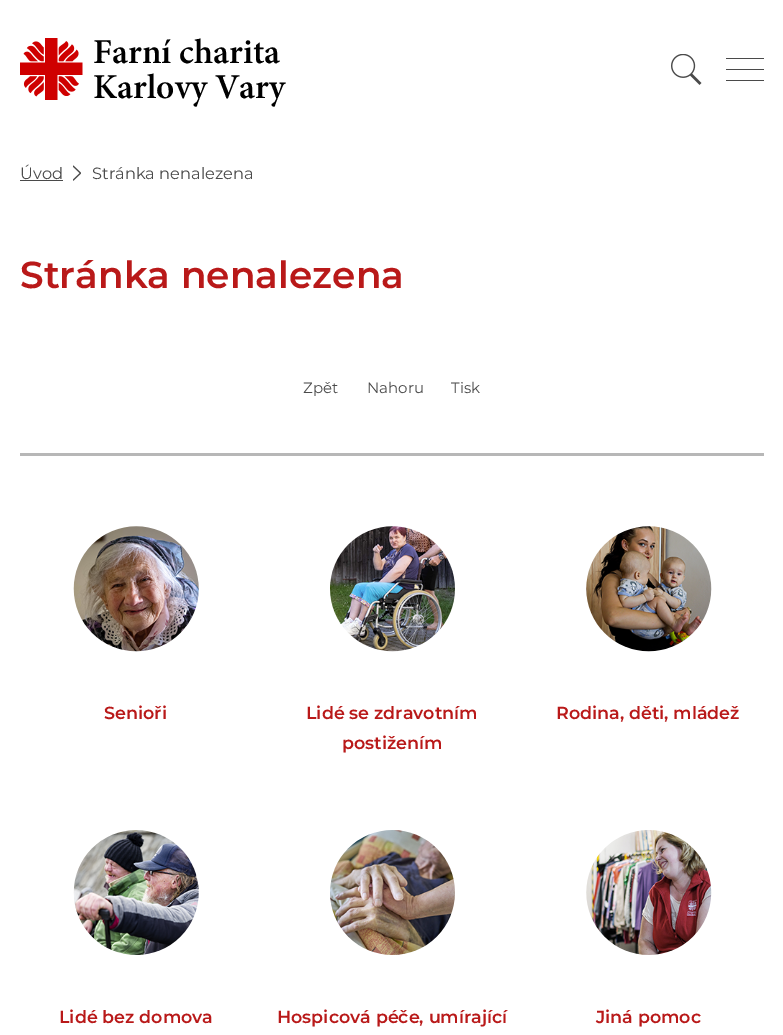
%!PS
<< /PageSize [783 1035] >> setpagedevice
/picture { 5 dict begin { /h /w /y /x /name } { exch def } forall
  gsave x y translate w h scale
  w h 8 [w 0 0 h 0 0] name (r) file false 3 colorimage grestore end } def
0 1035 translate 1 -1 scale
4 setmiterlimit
1 setgray
0 0 783 1035 rectfill
(img1.rgb) 20 38 63 62 picture
/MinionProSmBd-SemiBold [35 0 0 -35 0 0] selectfont
0 setgray
93 63 moveto (Farní charita) show
93 98 moveto (Karlovy Vary) show
(img2.rgb) 671 54 31 31 picture
0.29 setgray
726 58 38 1 rectfill
726 69 38 1 rectfill
726 80 38 1 rectfill
/Montserrat-Regular [16.25 0 0 -16.25 0 0] selectfont
20 179 moveto (Úvod) show
20 180 43 1 rectfill
(img3.rgb) 73 165 8 16 picture
92 179 moveto (Stránka nenalezena) show
/Montserrat-SemiBold [37.5 0 0 -37.5 0 0] selectfont
0.725 0.098 0.098 setrgbcolor
20 288 moveto (Stránka nenalezena) show
/Montserrat-Regular [15 0 0 -15 0 0] selectfont
0.29 setgray
303 393 moveto (Zpět) show
367 393 moveto (Nahoru) show
451 393 moveto (Tisk) show
0.718 setgray
20 453 744 3 rectfill
(img4.rgb) 73 526 126 126 picture
/Montserrat-SemiBold [17.5 0 0 -17.5 0 0] selectfont
0.725 0.098 0.098 setrgbcolor
104 719 moveto (Senioři) show
(img5.rgb) 330 526 125 126 picture
306 719 moveto (Lidé se zdravotním) show
342 749 moveto (postižením) show
(img6.rgb) 586 526 126 126 picture
556 719 moveto (Rodina, děti, mládež) show
(img7.rgb) 73 830 126 125 picture
59 1023 moveto (Lidé bez domova) show
(img8.rgb) 330 830 125 125 picture
277 1023 moveto (Hospicová péče, umírající) show
(img9.rgb) 586 830 126 125 picture
596 1023 moveto (Jiná pomoc) show
showpage
